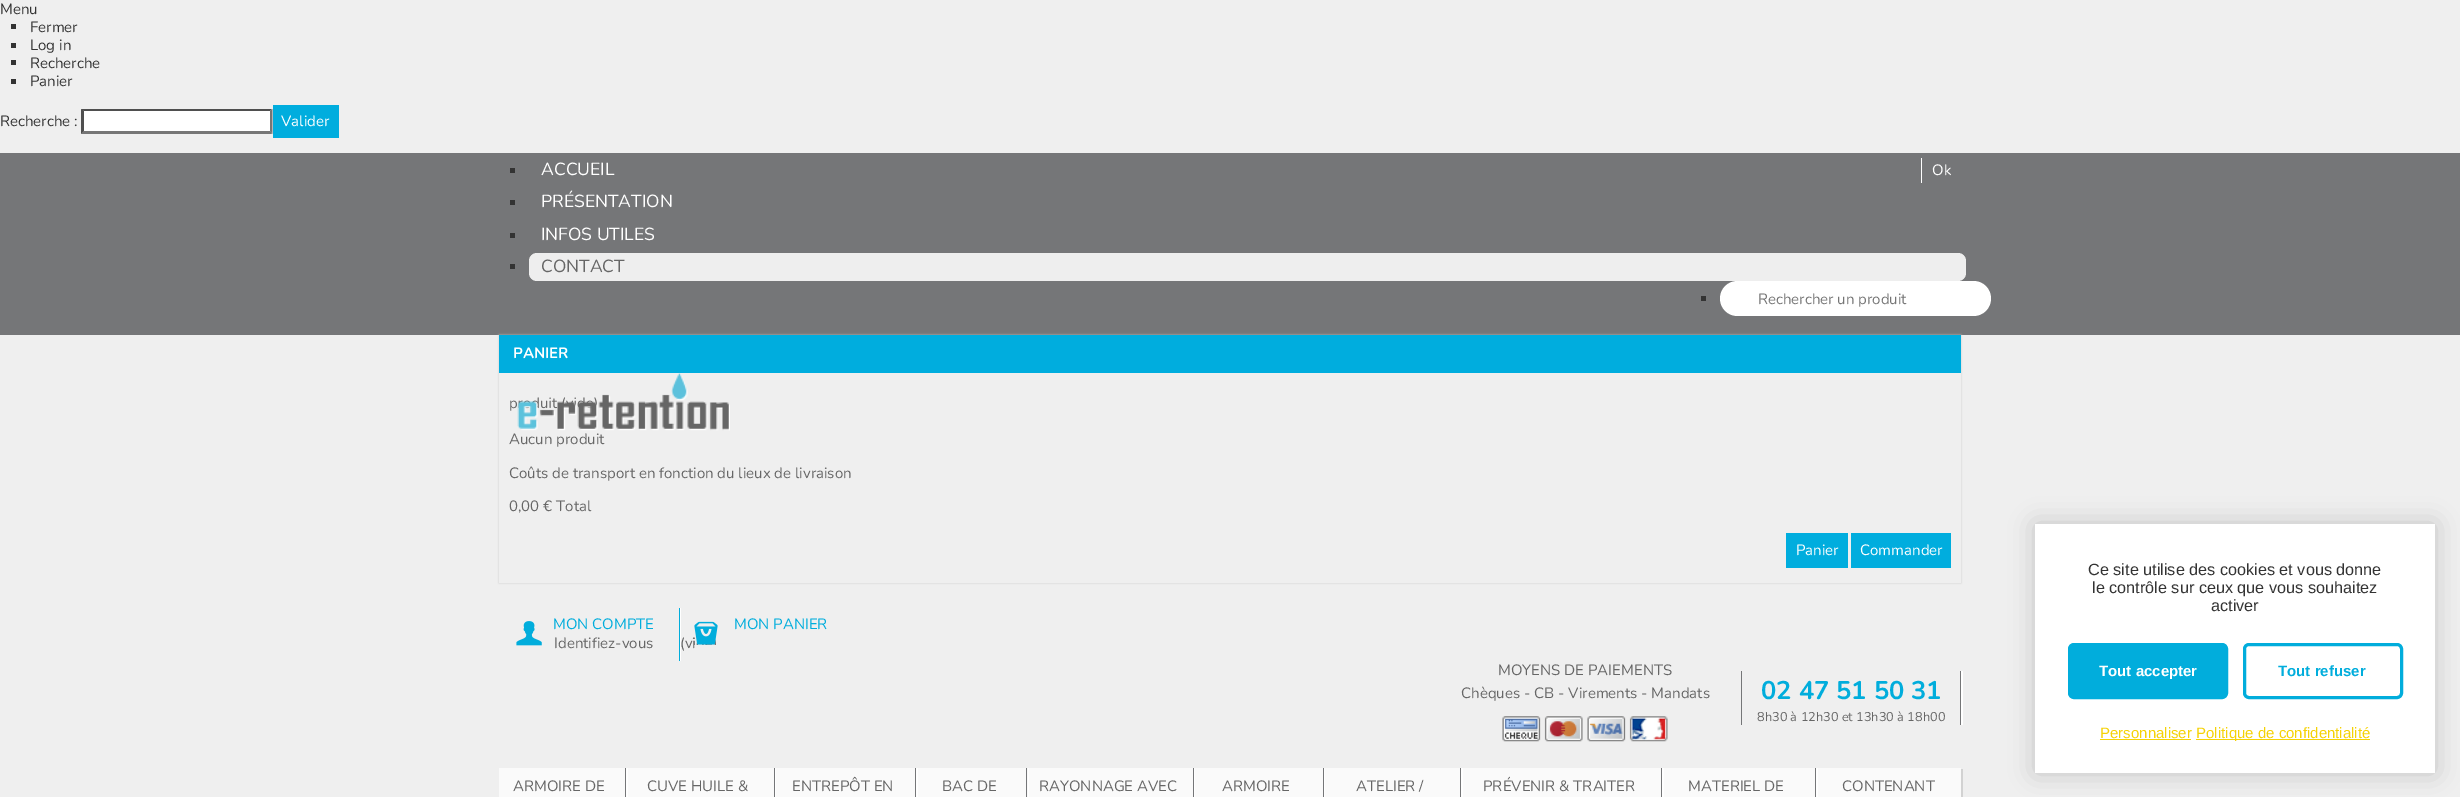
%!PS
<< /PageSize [2460 797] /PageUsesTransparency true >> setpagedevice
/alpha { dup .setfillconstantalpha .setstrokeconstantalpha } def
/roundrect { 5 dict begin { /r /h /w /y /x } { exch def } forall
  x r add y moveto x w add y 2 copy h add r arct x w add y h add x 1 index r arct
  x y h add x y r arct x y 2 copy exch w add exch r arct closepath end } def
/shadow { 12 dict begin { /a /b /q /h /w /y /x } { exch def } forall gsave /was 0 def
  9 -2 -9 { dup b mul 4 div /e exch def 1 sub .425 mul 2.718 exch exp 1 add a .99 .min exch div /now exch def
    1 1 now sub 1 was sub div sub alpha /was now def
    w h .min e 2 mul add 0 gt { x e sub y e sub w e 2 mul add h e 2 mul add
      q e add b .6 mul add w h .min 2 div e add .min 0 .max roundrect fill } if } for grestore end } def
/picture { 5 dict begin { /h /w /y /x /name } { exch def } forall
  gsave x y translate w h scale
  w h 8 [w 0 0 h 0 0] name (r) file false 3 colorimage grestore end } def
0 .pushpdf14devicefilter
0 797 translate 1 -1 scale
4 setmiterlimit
0.937 setgray
0 0 2460 797 rectfill
/Nunito-ExtraLight [15 0 0 -15 0 0] selectfont
0.2 setgray
0 14 moveto (Menu) show
11 24 5 5 rectfill
30 32 moveto (Fermer) show
11 43 5 5 rectfill
30 50 moveto (Log in) show
11 60 5 5 rectfill
30 68 moveto (Recherche) show
11 79 5 5 rectfill
30 86 moveto (Panier) show
0 126 moveto (Recherche :) show
1 setgray
81 109 192 25 rectfill
0.31 setgray
newpath 81 109 moveto 272 109 lineto 270 111 lineto 84 111 lineto closepath fill
0.463 setgray
newpath 272.5 109 moveto 272.5 134 lineto 270 131 lineto 270 111 lineto closepath fill
newpath 272 134 moveto 81 134 lineto 84 131 lineto 270 131 lineto closepath fill
0.31 setgray
newpath 81 134 moveto 81 109 lineto 84 111 lineto 84 131 lineto closepath fill
0 0.678 0.871 setrgbcolor
273 105 66 33 rectfill
1 setgray
281 126 moveto (Valider) show
0.459 0.463 0.471 setrgbcolor
0 153 2460 182 rectfill
0.2 setgray
510 168 5 5 rectfill
/Nunito-ExtraLight [17.5 0 0 -17.5 0 0] selectfont
1 setgray
541 175 moveto (ACCUEIL) show
0.2 setgray
1701 296 5 5 rectfill
1 setgray
1921 158 1 25 rectfill
/Nunito-ExtraLight [15 0 0 -15 0 0] selectfont
1932 175 moveto (Ok) show
1720 281 271 35 17.5 roundrect fill
0.459 setgray
1758 304 moveto (Rechercher un produit) show
0.2 setgray
510 200 5 5 rectfill
/Nunito-ExtraLight [17.5 0 0 -17.5 0 0] selectfont
1 setgray
541 207 moveto (PRÉSENTATION) show
0.2 setgray
510 233 5 5 rectfill
1 setgray
541 240 moveto (INFOS UTILES) show
0.2 setgray
510 264 5 5 rectfill
0.933 setgray
529 253 1437 28 8 roundrect fill
0.4 setgray
541 272 moveto (CONTACT) show
gsave
newpath 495 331 moveto 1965 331 lineto 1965 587 lineto 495 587 lineto closepath 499 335 moveto 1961 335 lineto 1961 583 lineto 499 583 lineto closepath eoclip newpath
0.776 setgray
499 335 1462 248 0 1 1 shadow
grestore
0 0.678 0.871 setrgbcolor
499 335 1462 38 rectfill
/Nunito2-ExtraLight [15 0 0 -15 0 0] selectfont
1 setgray
513 358 moveto (PANIER) show
/Nunito-ExtraLight [15 0 0 -15 0 0] selectfont
0.4 setgray
509 408 moveto (p) show
540 408 moveto (uit) show
509 444 moveto (Aucun produit) show
509 478 moveto (Coûts de transport en fonction du lieux de livraison) show
509 511 moveto (0,00 € Total) show
0 0.678 0.871 setrgbcolor
1786 533 62 35 rectfill
1 setgray
1796 555 moveto (Panier) show
0 0.678 0.871 setrgbcolor
1851 533 100 35 rectfill
1 setgray
1860 555 moveto (Commander) show
680 608 1 53 rectfill
0.004 0.678 0.863 setrgbcolor
679 608 1 53 rectfill
(img1.rgb) 516 621 26 25 picture
553 629 moveto (MON COMPTE) show
0.4 setgray
554 648 moveto (Identifiez-vous) show
680 648 moveto (\(vi) show
(img2.rgb) 694 621 24 24 picture
0.004 0.678 0.863 setrgbcolor
734 629 moveto (MON PANIER) show
0.4 setgray
1498 675 moveto (MOYENS DE PAIEMENTS) show
1461 698 moveto (Chèques - CB - Virements - Mandats) show
(img3.rgb) 1502 716 166 26 picture
1 setgray
newpath 1743 671 moveto 1961 671 lineto 1961 725 lineto 1963 725 lineto 1963 671 lineto closepath fill
0.459 0.463 0.471 setrgbcolor
1960 671 1 54 rectfill
1741 671 1 54 rectfill
/Nunito2-ExtraLight [25.5 0 0 -25.5 0 0] selectfont
0.004 0.678 0.863 setrgbcolor
1761 699 moveto (02 47 51 50 31) show
/Nunito-ExtraLight [12.75 0 0 -12.75 0 0] selectfont
0.4 setgray
1757 721 moveto (8h30 à 12h30 et 13h30 à 18h00) show
0.824 setgray
newpath 500 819 moveto 500 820 lineto 1963 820 lineto 1963 769 lineto 1961 769 lineto 1961 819 lineto closepath fill
0.98 setgray
499 768 1462 29 rectfill
1 setgray
newpath 500 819 moveto 628 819 lineto 628 768 lineto 626 768 lineto 626 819 lineto closepath fill
0.459 0.463 0.471 setrgbcolor
625 768 1 29 rectfill
/Nunito-ExtraLight [15 0 0 -15 0 0] selectfont
0.4 setgray
513 791 moveto (ARMOIRE DE) show
1 setgray
newpath 628 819 moveto 776 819 lineto 776 768 lineto 775 768 lineto 775 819 lineto closepath fill
0.459 0.463 0.471 setrgbcolor
774 768 1 29 rectfill
0.4 setgray
647 791 moveto (CUVE HUILE &) show
1 setgray
newpath 776 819 moveto 918 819 lineto 918 768 lineto 916 768 lineto 916 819 lineto closepath fill
0.459 0.463 0.471 setrgbcolor
915 768 1 29 rectfill
0.4 setgray
792 791 moveto (ENTREPÔT EN) show
1 setgray
newpath 918 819 moveto 1029 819 lineto 1029 768 lineto 1028 768 lineto 1028 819 lineto closepath fill
0.459 0.463 0.471 setrgbcolor
1026 768 1 29 rectfill
0.4 setgray
942 791 moveto (BAC DE) show
1 setgray
newpath 1029 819 moveto 1195 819 lineto 1195 768 lineto 1194 768 lineto 1194 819 lineto closepath fill
0.459 0.463 0.471 setrgbcolor
1193 768 1 29 rectfill
0.4 setgray
1039 791 moveto (RAYONNAGE AVEC) show
1 setgray
newpath 1195 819 moveto 1325 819 lineto 1325 768 lineto 1324 768 lineto 1324 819 lineto closepath fill
0.459 0.463 0.471 setrgbcolor
1323 768 1 29 rectfill
0.4 setgray
1222 791 moveto (ARMOIRE) show
1 setgray
newpath 1325 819 moveto 1463 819 lineto 1463 768 lineto 1461 768 lineto 1461 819 lineto closepath fill
0.459 0.463 0.471 setrgbcolor
1460 768 1 29 rectfill
0.4 setgray
1356 791 moveto (ATELIER /) show
1 setgray
newpath 1463 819 moveto 1664 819 lineto 1664 768 lineto 1662 768 lineto 1662 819 lineto closepath fill
0.459 0.463 0.471 setrgbcolor
1661 768 1 29 rectfill
0.4 setgray
1483 791 moveto (PRÉVENIR & TRAITER) show
1 setgray
newpath 1664 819 moveto 1818 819 lineto 1818 768 lineto 1816 768 lineto 1816 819 lineto closepath fill
0.459 0.463 0.471 setrgbcolor
1815 768 1 29 rectfill
0.4 setgray
1688 791 moveto (MATERIEL DE) show
1842 791 moveto (CONTENANT) show
(img4.rgb) 517 372 213 59 picture
0 setgray
2035 524 400 249 0 12.5 0.18 shadow
1 setgray
2035 524 400 249 rectfill
/LiberationSans-Regular [16.25 0 0 -16.25 0 0] selectfont
0.2 setgray
2088 575 moveto (Ce site utilise des cookies et vous donne) show
2092 593 moveto (le contrôle sur ceux que vous souhaitez) show
2211 611 moveto (activer) show
0.004 0.678 0.863 setrgbcolor
2069.5 644.5 157 53 4.5 roundrect gsave fill grestore
3 setlinewidth
stroke
/LiberationSans-Bold [15 0 0 -15 0 0] selectfont
1 setgray
2099 676 moveto (Tout accepter) show
0.004 0.678 0.863 setrgbcolor
2244.5 644.5 157 53 4.5 roundrect stroke
2278 676 moveto (Tout refuser) show
/LiberationSans-Regular [15 0 0 -15 0 0] selectfont
0.961 0.824 0.024 setrgbcolor
2100 738 moveto (Personnaliser) show
2100 739 91 1 rectfill
2196 739 174 1 rectfill
2196 738 moveto (Politique de confidentialité) show
.poppdf14devicefilter showpage
